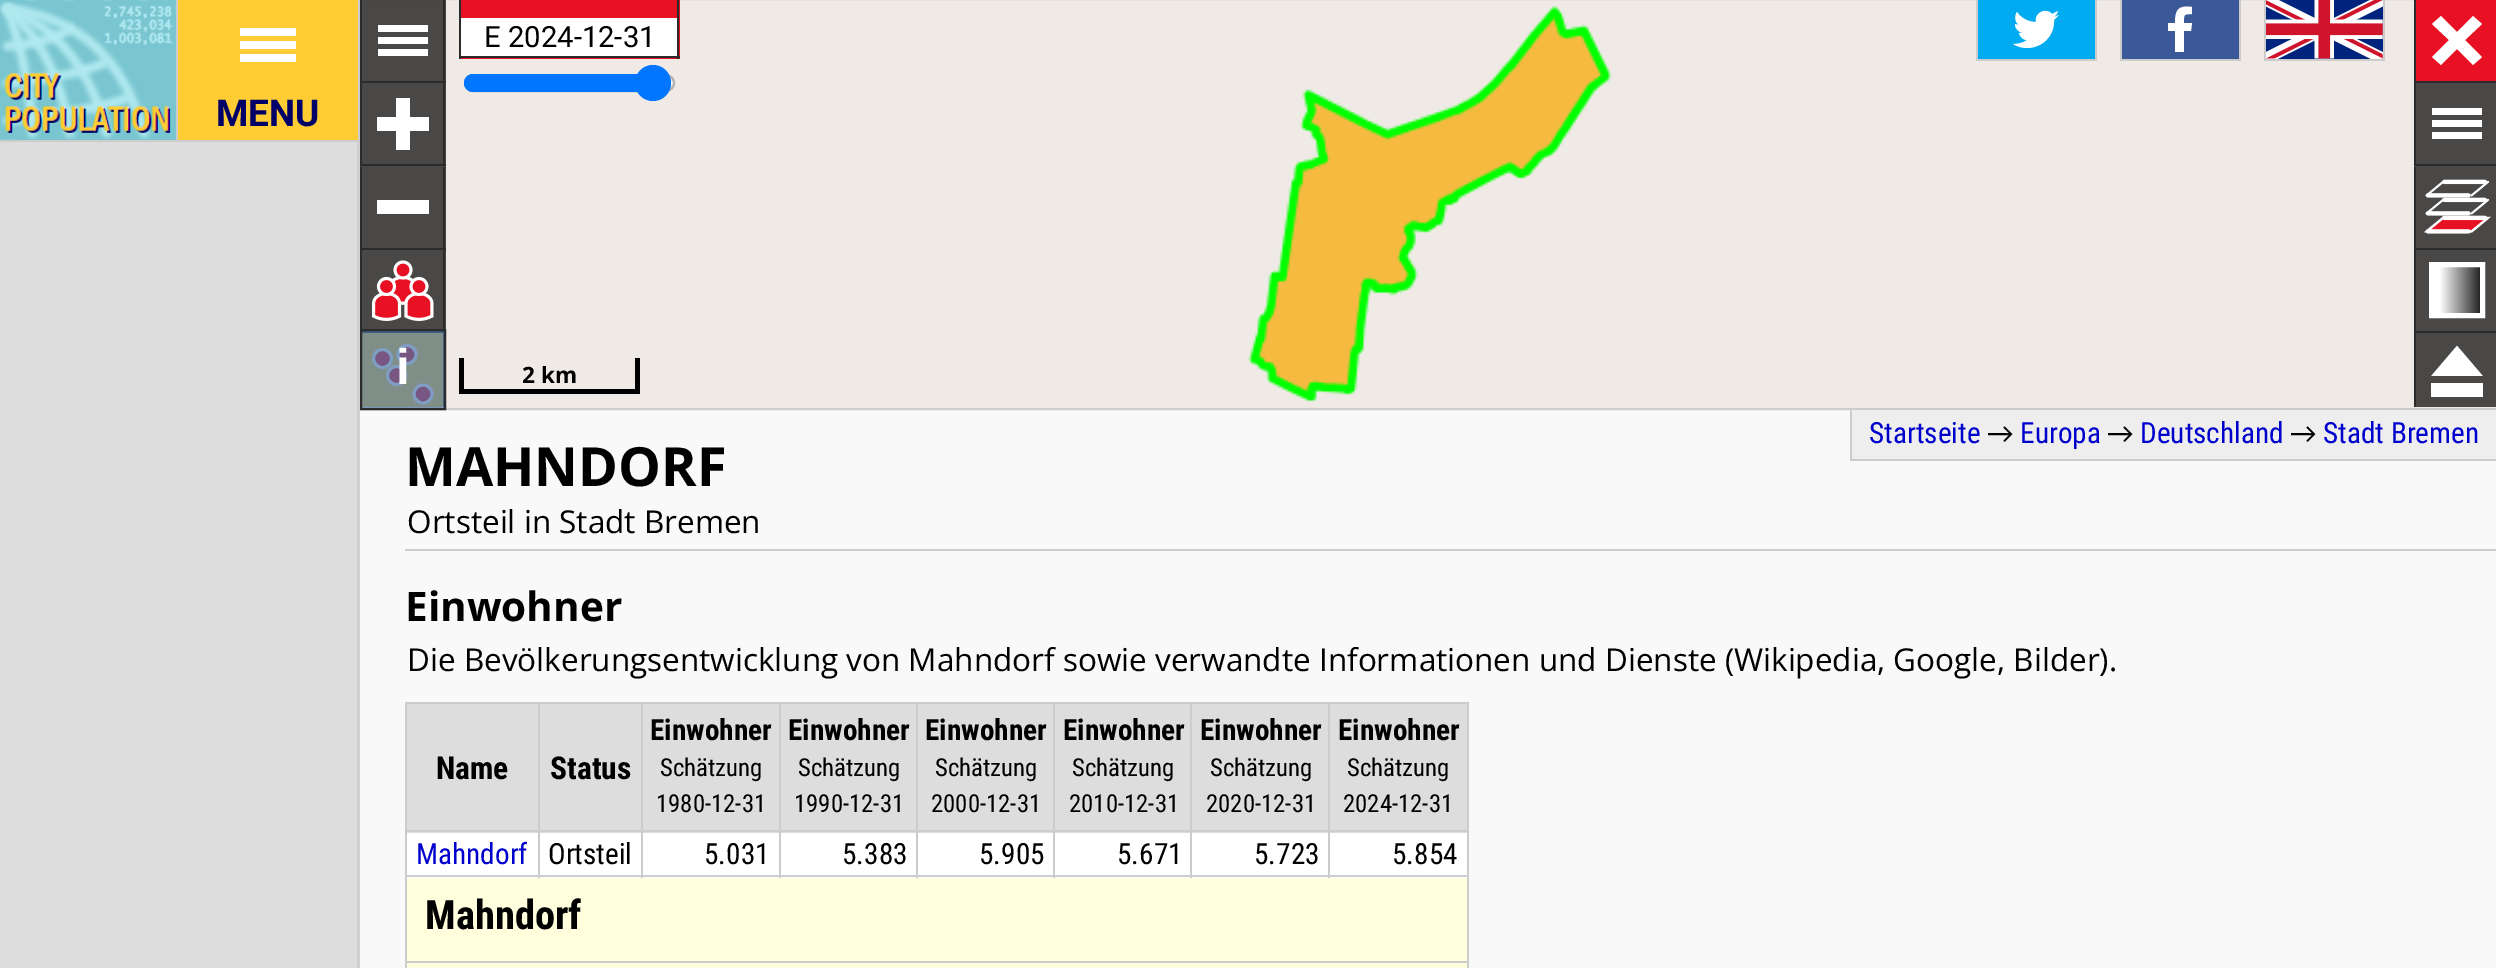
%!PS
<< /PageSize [2496 968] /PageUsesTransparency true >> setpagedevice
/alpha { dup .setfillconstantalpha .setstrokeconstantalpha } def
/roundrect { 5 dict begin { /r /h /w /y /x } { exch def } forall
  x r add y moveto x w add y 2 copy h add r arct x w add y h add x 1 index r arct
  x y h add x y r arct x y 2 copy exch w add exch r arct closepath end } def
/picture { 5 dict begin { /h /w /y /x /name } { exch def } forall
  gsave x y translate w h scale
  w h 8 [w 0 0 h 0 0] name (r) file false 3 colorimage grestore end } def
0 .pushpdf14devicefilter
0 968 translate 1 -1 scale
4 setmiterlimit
0.976 setgray
0 0 2496 968 rectfill
(img1.rgb) 0 0 176 140 picture
0.8 setgray
176 0 2 142 rectfill
0 140 178 2 rectfill
1 0.8 0.2 setrgbcolor
178 0 180 140 rectfill
0.8 setgray
358 0 2 142 rectfill
178 140 182 2 rectfill
1 setgray
240 28 56 8 rectfill
240 41 56 8 rectfill
240 54 56 8 rectfill
/Roboto-Bold [37 0 0 -37 0 0] selectfont
0 0 0.4 setrgbcolor
216 126 moveto (MENU) show
0.941 0.918 0.902 setrgbcolor
newpath 361 -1 moveto 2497 -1 lineto 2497 409 lineto 361 409 lineto closepath gsave fill grestore
0.8 setgray
2 setlinewidth
stroke
0.4 alpha
0.169 setgray
360 0 86 329 rectfill
0.75 alpha
362 0 84 81 rectfill
1 alpha
360 81 86 2 rectfill
360 0 2 81 rectfill
1 setgray
378 25 50 7 rectfill
0.169 setgray
443 0 2 81 rectfill
1 setgray
378 37 50 7 rectfill
378 49 50 7 rectfill
0.75 alpha
0.169 setgray
360 83 86 84 rectfill
1 alpha
360 164 86 2 rectfill
360 83 2 81 rectfill
1 setgray
377 117 52 14 rectfill
396 98 14 52 rectfill
0.169 setgray
443 83 2 81 rectfill
0.75 alpha
362 167 84 81 rectfill
1 alpha
360 248 86 2 rectfill
360 167 2 81 rectfill
1 setgray
377 200 52 14 rectfill
0.169 setgray
443 167 2 81 rectfill
0.75 alpha
362 250 84 79 rectfill
1 alpha
360 331 86 2 rectfill
360 250 2 81 rectfill
(img2.rgb) 372 260 62 61 picture
443 250 2 81 rectfill
1 0.8 0.2 setrgbcolor
362 333 81 74 rectfill
0.91 0.067 0.137 setrgbcolor
newpath 382.5 358.5 9 0 360 arc closepath gsave fill grestore
1 setgray
3 setlinewidth
stroke
0.91 0.067 0.137 setrgbcolor
newpath 407 354.5 9 0 360 arc closepath gsave fill grestore
1 setgray
stroke
0.169 setgray
443 333 1 74 rectfill
0.91 0.067 0.137 setrgbcolor
newpath 396.5 375.5 9 0 360 arc closepath gsave fill grestore
1 setgray
stroke
0.91 0.067 0.137 setrgbcolor
newpath 423 394 9 0 360 arc closepath gsave fill grestore
1 setgray
stroke
0.91 0.067 0.137 setrgbcolor
461 0 219 59 rectfill
0.169 setgray
677 0 2 59 rectfill
459 56 221 2 rectfill
459 0 2 59 rectfill
1 setgray
461 18 216 38 rectfill
/Roboto-Regular [29.25 0 0 -29.25 0 0] selectfont
0 setgray
484 47 moveto (E 2024-12-31) show
0.937 setgray
465 75 209 16 8 roundrect gsave fill grestore
0.698 setgray
2 setlinewidth
stroke
0 0.459 1 setrgbcolor
newpath 473 74 moveto 653 74 lineto 653 92 lineto 473 92 lineto 468 92 464 88 464 83 curveto 464 78 468 74 473 74 curveto closepath fill
newpath 653 83 18 0 360 arc closepath fill
0.91 0.067 0.137 setrgbcolor
2416 0 80 81 rectfill
0.169 setgray
2414 81 82 2 rectfill
2414 0 2 81 rectfill
1 setgray
newpath 2441 16 moveto 2457 32 lineto 2473 16 lineto 2482 24 lineto 2465 40 lineto 2482 57 lineto 2473 65 lineto 2457 49 lineto 2441 65 lineto 2432 57 lineto 2449 40 lineto 2432 24 lineto closepath fill
0.286 0.282 0.278 setrgbcolor
2414 83 82 84 rectfill
0.169 setgray
2414 164 82 2 rectfill
2414 83 2 81 rectfill
1 setgray
2432 108 50 7 rectfill
2432 120 50 7 rectfill
2432 132 50 7 rectfill
0.286 0.282 0.278 setrgbcolor
2416 167 80 81 rectfill
0.169 setgray
2414 248 82 2 rectfill
2414 167 2 81 rectfill
(img3.rgb) 2423 179 68 55 picture
0.286 0.282 0.278 setrgbcolor
2416 250 80 81 rectfill
0.169 setgray
2414 331 82 2 rectfill
2414 250 2 81 rectfill
gsave newpath 2434 267 moveto 2480 267 lineto 2480 313 lineto 2434 313 lineto closepath clip newpath
<< /ShadingType 2 /ColorSpace /DeviceRGB /Coords [2432 265 2487 265] /Extend [true true] /Function << /FunctionType 3 /Domain [0 1] /Functions [<< /FunctionType 2 /Domain [0 1] /C0 [1 1 1] /C1 [1 1 1] /N 1 >> << /FunctionType 2 /Domain [0 1] /C0 [1 1 1] /C1 [0 0 0] /N 1 >>] /Bounds [0.14] /Encode [0 1 0 1] >> >> shfill grestore
1 setgray
5 setlinewidth
2431.5 264.5 51 51 rectstroke
0.286 0.282 0.278 setrgbcolor
2416 333 80 74 rectfill
0.169 setgray
2414 333 2 74 rectfill
1 setgray
newpath 2436 374 moveto 2478 374 lineto 2457 350 lineto closepath fill
4.8 setlinewidth
newpath 2436.5 373.5 moveto 2477.5 373.5 lineto 2457 349.5 lineto closepath stroke
2431 383 52 14 rectfill
0.4 alpha
360 329 86 81 9 roundrect fill
0.5 alpha
0 0.235 0.533 setrgbcolor
newpath 361 330 moveto 445 330 lineto 445 409 lineto 361 409 lineto closepath fill
1 alpha
0.169 setgray
2 setlinewidth
newpath 361 330 moveto 445 330 lineto 445 409 lineto 361 409 lineto closepath stroke
/LiberationSans-Bold [50 0 0 -50 0 0] selectfont
1 setgray
396 384 moveto (i) show
0 setgray
635 358 5 36 rectfill
459 389 180 5 rectfill
459 358 5 36 rectfill
/OpenSans-Bold [22.5 0 0 -22.5 0 0] selectfont
522 383 moveto (2 km) show
(img4.rgb) 1248 6 364 396 picture
0.8 setgray
2095 0 2 61 rectfill
1976 59 121 2 rectfill
1976 0 2 61 rectfill
0 0.671 0.945 setrgbcolor
1978 0 117 59 rectfill
1 setgray
newpath 2059 15 moveto 2054 17 lineto 2056 15 2057 14 2058 11 curveto 2052 14 lineto 2046 7 2034 13 2036 22 curveto 2028 22 2021 18 2017 12 curveto 2014 17 2015 22 2019 25 curveto 2015 24 lineto 2015 28 2018 32 2023 33 curveto 2019 33 lineto 2020 37 2023 40 2027 40 curveto 2023 43 2018 44 2013 44 curveto 2031 55 2055 42 2054 20 curveto closepath fill
0.8 setgray
2239 0 2 61 rectfill
2120 59 121 2 rectfill
2120 0 2 61 rectfill
0.231 0.349 0.596 setrgbcolor
2122 0 117 59 rectfill
1 setgray
newpath 2184 52 moveto 2184 31 lineto 2191 31 lineto 2192 23 lineto 2184 23 lineto 2184 15 2183 14 2192 14 curveto 2192 7 lineto 2178 5 2175 10 2175 23 curveto 2168 23 lineto 2168 31 lineto 2175 31 lineto 2175 52 lineto closepath fill
0.8 setgray
2383 0 2 61 rectfill
2264 59 121 2 rectfill
2264 0 2 61 rectfill
(img5.rgb) 2266 0 117 59 picture
0.867 setgray
0 142 357 826 rectfill
0.812 setgray
357 142 3 826 rectfill
0.933 setgray
1852 410 644 49 rectfill
0.8 setgray
1850 459 646 2 rectfill
1850 410 2 51 rectfill
/RobotoCondensed-Regular [29.25 0 0 -29.25 0 0] selectfont
0 0 0.8 setrgbcolor
1869 443 moveto (Startseite) show
/Carlito-Regular [29.25 0 0 -29.25 0 0] selectfont
0 setgray
1987 443 moveto (→) show
/RobotoCondensed-Regular [29.25 0 0 -29.25 0 0] selectfont
0 0 0.8 setrgbcolor
2020 443 moveto (Europa) show
/Carlito-Regular [29.25 0 0 -29.25 0 0] selectfont
0 setgray
2107 443 moveto (→) show
/RobotoCondensed-Regular [29.25 0 0 -29.25 0 0] selectfont
0 0 0.8 setrgbcolor
2140 443 moveto (Deutschland) show
/Carlito-Regular [29.25 0 0 -29.25 0 0] selectfont
0 setgray
2290 443 moveto (→) show
/RobotoCondensed-Regular [29.25 0 0 -29.25 0 0] selectfont
0 0 0.8 setrgbcolor
2323 443 moveto (Stadt Bremen) show
0.8 setgray
405 549 2091 2 rectfill
/OpenSans-Bold [54 0 0 -54 0 0] selectfont
0 setgray
405 486 moveto (MAHNDORF) show
/OpenSans-Regular [31.5 0 0 -31.5 0 0] selectfont
407 533 moveto (Ortsteil in Stadt Bremen) show
/OpenSans-Bold [40.5 0 0 -40.5 0 0] selectfont
405 621 moveto (Einwohner) show
/OpenSans-Regular [31.5 0 0 -31.5 0 0] selectfont
407 671 moveto (Die Bevölkerungsentwicklung von Mahndorf sowie verwandte Informationen und Dienste \(Wikipedia, Google, Bilder\).) show
0.8 setgray
405 702 1064 2 rectfill
1467 702 2 266 rectfill
405 702 2 266 rectfill
0.867 setgray
407 704 131 129 rectfill
/RobotoCondensed-Bold [31.5 0 0 -31.5 0 0] selectfont
0 setgray
436 779 moveto (Name) show
0.867 setgray
540 704 239 129 rectfill
781 704 135 129 rectfill
918 704 135 129 rectfill
1055 704 273 129 rectfill
1330 704 137 129 rectfill
0.8 setgray
1328 830 141 2 rectfill
1 setgray
407 833 131 45 rectfill
540 833 239 45 rectfill
781 833 135 45 rectfill
918 833 135 45 rectfill
1055 833 273 45 rectfill
1330 833 137 45 rectfill
0.8 setgray
405 875 1064 2 rectfill
1328 830 2 48 rectfill
1190 830 140 2 rectfill
1190 830 2 48 rectfill
1053 830 140 2 rectfill
1053 830 2 48 rectfill
916 830 139 2 rectfill
916 830 2 48 rectfill
779 830 139 2 rectfill
779 830 2 48 rectfill
641 830 140 2 rectfill
641 830 2 48 rectfill
538 830 106 2 rectfill
538 830 2 48 rectfill
405 830 135 2 rectfill
538 702 2 131 rectfill
0 setgray
550 779 moveto (Status) show
0.8 setgray
641 702 2 131 rectfill
/RobotoCondensed-Bold [29.25 0 0 -29.25 0 0] selectfont
0 setgray
650 740 moveto (Einwohner) show
/RobotoCondensed-Regular [24.75 0 0 -24.75 0 0] selectfont
660 776 moveto (Schätzung) show
656 812 moveto (1980-12-31) show
0.8 setgray
779 702 2 131 rectfill
/RobotoCondensed-Bold [29.25 0 0 -29.25 0 0] selectfont
0 setgray
788 740 moveto (Einwohner) show
/RobotoCondensed-Regular [24.75 0 0 -24.75 0 0] selectfont
798 776 moveto (Schätzung) show
794 812 moveto (1990-12-31) show
0.8 setgray
916 702 2 131 rectfill
/RobotoCondensed-Bold [29.25 0 0 -29.25 0 0] selectfont
0 setgray
925 740 moveto (Einwohner) show
/RobotoCondensed-Regular [24.75 0 0 -24.75 0 0] selectfont
935 776 moveto (Schätzung) show
931 812 moveto (2000-12-31) show
0.8 setgray
1053 702 2 131 rectfill
/RobotoCondensed-Bold [29.25 0 0 -29.25 0 0] selectfont
0 setgray
1063 740 moveto (Einwohner) show
/RobotoCondensed-Regular [24.75 0 0 -24.75 0 0] selectfont
1072 776 moveto (Schätzung) show
1069 812 moveto (2010-12-31) show
0.8 setgray
1190 702 2 131 rectfill
/RobotoCondensed-Bold [29.25 0 0 -29.25 0 0] selectfont
0 setgray
1200 740 moveto (Einwohner) show
/RobotoCondensed-Regular [24.75 0 0 -24.75 0 0] selectfont
1210 776 moveto (Schätzung) show
1206 812 moveto (2020-12-31) show
0.8 setgray
1328 702 2 131 rectfill
/RobotoCondensed-Bold [29.25 0 0 -29.25 0 0] selectfont
0 setgray
1338 740 moveto (Einwohner) show
/RobotoCondensed-Regular [24.75 0 0 -24.75 0 0] selectfont
1347 776 moveto (Schätzung) show
1343 812 moveto (2024-12-31) show
/RobotoCondensed-Regular [29.25 0 0 -29.25 0 0] selectfont
0 0 0.8 setrgbcolor
416 864 moveto (Mahndorf) show
0 setgray
548 864 moveto (Ortsteil) show
704 864 moveto (5.031) show
842 864 moveto (5.383) show
979 864 moveto (5.905) show
1117 864 moveto (5.671) show
1254 864 moveto (5.723) show
1392 864 moveto (5.854) show
1 1 0.867 setrgbcolor
407 878 1060 90 rectfill
/RobotoCondensed-Bold [40.5 0 0 -40.5 0 0] selectfont
0 setgray
425 929 moveto (Mahndorf) show
0.8 setgray
407 961 1060 2 rectfill
.poppdf14devicefilter showpage
